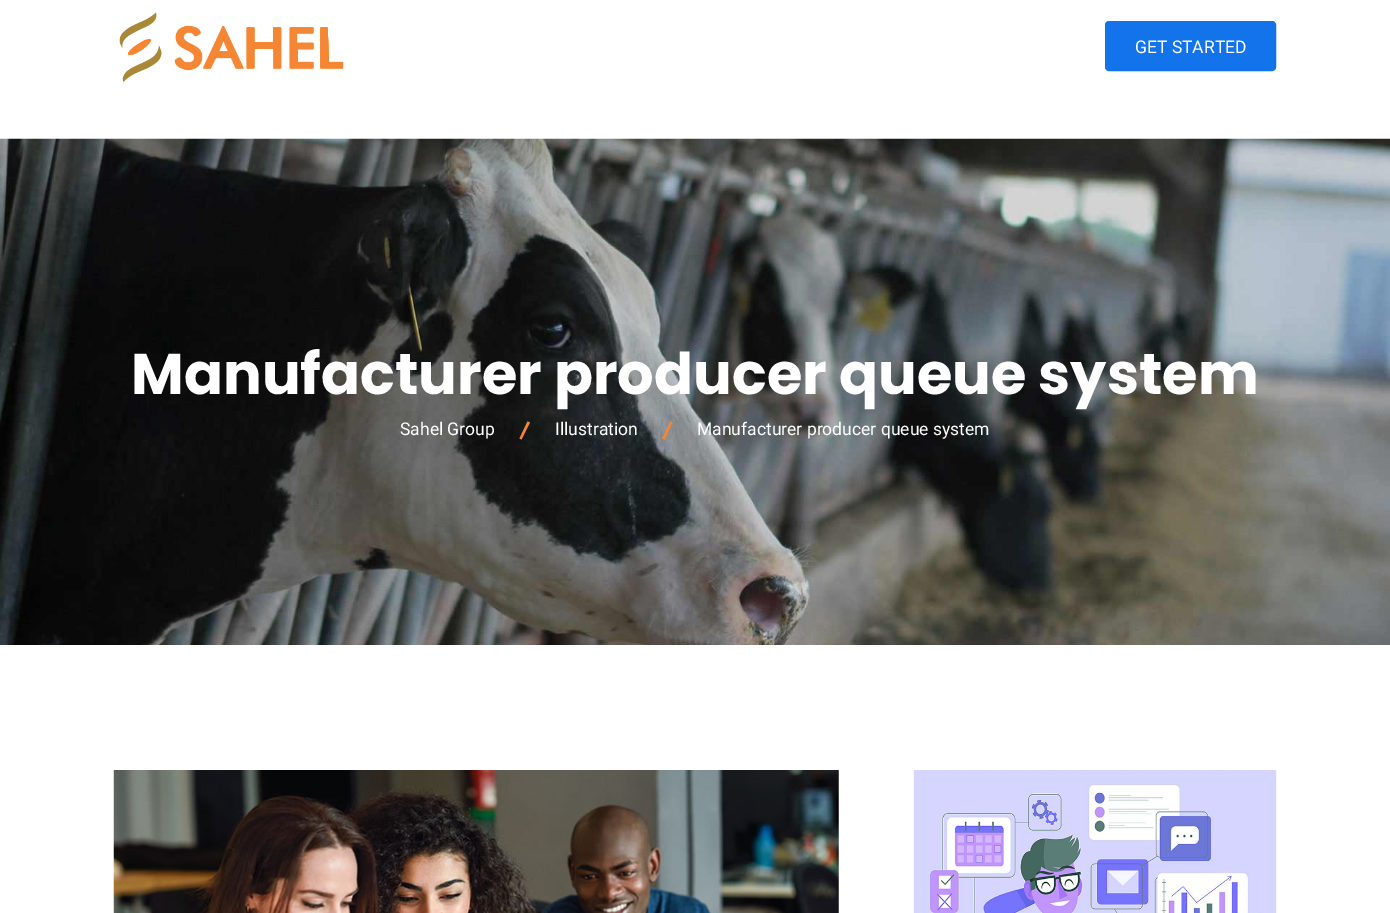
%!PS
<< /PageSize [1390 913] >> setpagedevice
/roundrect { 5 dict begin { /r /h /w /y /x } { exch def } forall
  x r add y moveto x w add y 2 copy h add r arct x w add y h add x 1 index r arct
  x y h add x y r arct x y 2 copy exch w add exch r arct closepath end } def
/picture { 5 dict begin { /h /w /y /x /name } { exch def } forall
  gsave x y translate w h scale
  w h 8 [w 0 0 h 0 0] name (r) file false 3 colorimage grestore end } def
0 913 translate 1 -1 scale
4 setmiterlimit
1 setgray
0 0 1390 913 rectfill
(img1.rgb) 119 12 225 70 picture
0.071 0.451 0.922 setrgbcolor
1106.5 22.5 168 47 2.5 roundrect gsave fill grestore
3 setlinewidth
stroke
/Roboto-Regular [17.5 0 0 -17.5 0 0] selectfont
1 setgray
1135 53 moveto (GET STARTED) show
(img2.rgb) 0 138 1390 507 picture
/Poppins-Bold [57.5 0 0 -57.5 0 0] selectfont
131 394 moveto (Manufacturer producer queue system) show
/Roboto-Regular [17.5 0 0 -17.5 0 0] selectfont
400 435 moveto (Sahel Group) show
0.961 0.525 0.204 setrgbcolor
newpath 527.5 421.5 moveto 530 422.5 lineto 521.5 439.5 lineto 519.5 438.5 lineto closepath fill
1 setgray
555 435 moveto (Illustration) show
0.961 0.525 0.204 setrgbcolor
newpath 670.5 421.5 moveto 672.5 422.5 lineto 664.5 439.5 lineto 662 438.5 lineto closepath fill
1 setgray
697 435 moveto (Manufacturer producer queue system) show
(img3.rgb) 113 770 726 143 picture
(img4.rgb) 913 770 364 143 picture
showpage
